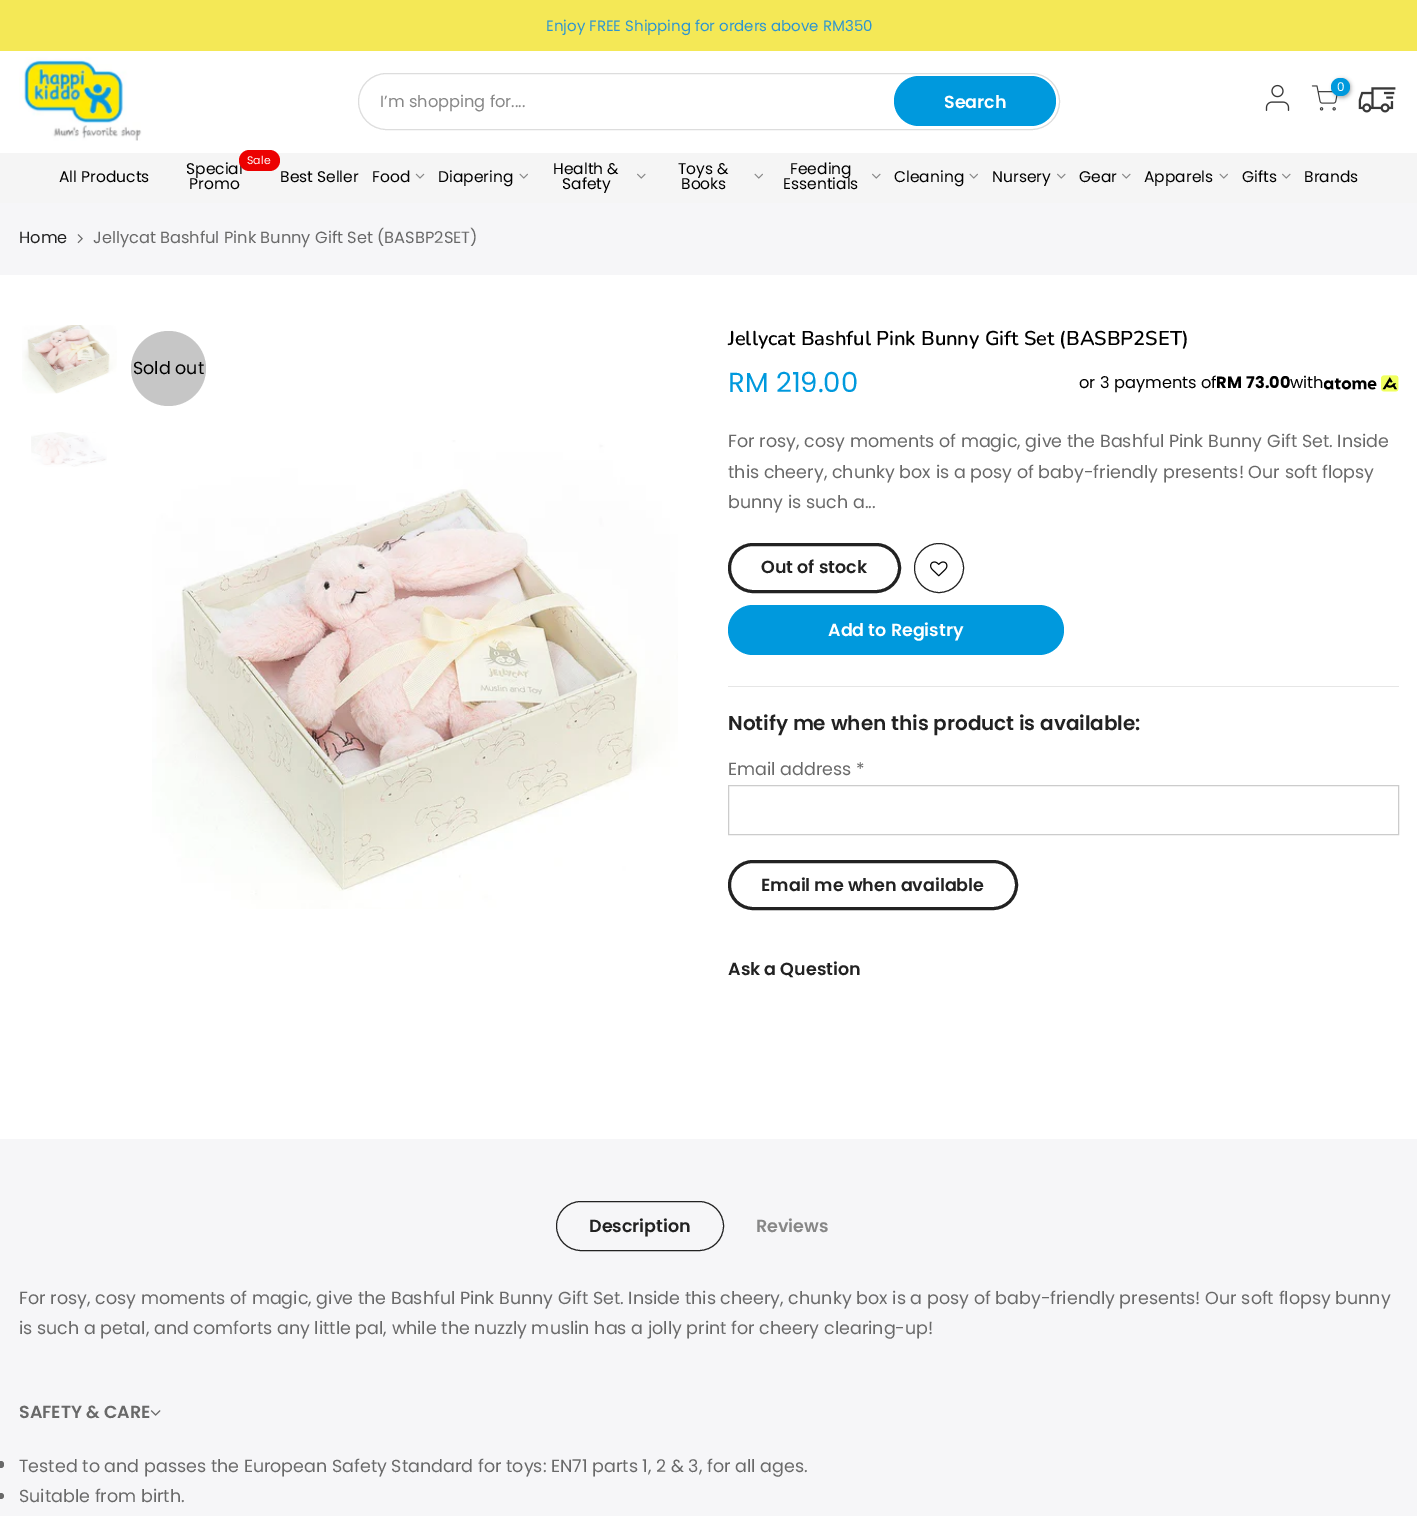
%!PS
<< /PageSize [1417 1516] /PageUsesTransparency true >> setpagedevice
/alpha { dup .setfillconstantalpha .setstrokeconstantalpha } def
/roundrect { 5 dict begin { /r /h /w /y /x } { exch def } forall
  x r add y moveto x w add y 2 copy h add r arct x w add y h add x 1 index r arct
  x y h add x y r arct x y 2 copy exch w add exch r arct closepath end } def
/shadow { 12 dict begin { /a /b /q /h /w /y /x } { exch def } forall gsave /was 0 def
  9 -2 -9 { dup b mul 4 div /e exch def 1 sub .425 mul 2.718 exch exp 1 add a .99 .min exch div /now exch def
    1 1 now sub 1 was sub div sub alpha /was now def
    w h .min e 2 mul add 0 gt { x e sub y e sub w e 2 mul add h e 2 mul add
      q e add b .6 mul add w h .min 2 div e add .min 0 .max roundrect fill } if } for grestore end } def
/picture { 5 dict begin { /h /w /y /x /name } { exch def } forall
  gsave x y translate w h scale
  w h 8 [w 0 0 h 0 0] name (r) file false 3 colorimage grestore end } def
0 .pushpdf14devicefilter
0 1516 translate 1 -1 scale
4 setmiterlimit
1 setgray
0 0 1417 1516 rectfill
0.957 0.91 0.337 setrgbcolor
0 0 1417 51 rectfill
/Poppins-Regular [15 0 0 -15 0 0] selectfont
0.18 0.584 0.816 setrgbcolor
546 31 moveto (Enjoy FREE Shipping for orders above RM350) show
(img1.rgb) 19 57 123 84 picture
(img2.rgb) 1265 84 25 27 picture
(img3.rgb) 1311 85 27 26 picture
0 setgray
1333 79 18 19 9 2 0.3 shadow
0 0.6 0.867 setrgbcolor
1331 78 19 18 9 roundrect fill
/Poppins-Regular [12 0 0 -12 0 0] selectfont
1 setgray
1337 91 moveto (0) show
(img4.rgb) 1358 87 38 26 picture
0.867 setgray
358.5 73.5 701 56 28 roundrect stroke
/Poppins-Regular [16.25 0 0 -16.25 0 0] selectfont
0.529 setgray
380 107 moveto (I’m shopping for....) show
0 0.6 0.867 setrgbcolor
894 76 162 50 25 roundrect fill
/Poppins-SemiBold [17.5 0 0 -17.5 0 0] selectfont
1 setgray
944 108 moveto (Search) show
0.961 setgray
0 153 1417 50 rectfill
/Poppins-Regular [15.5 0 0 -15.5 0 0] selectfont
0 setgray
59 182 moveto (All Products) show
186 174 moveto (Special) show
0.925 0.004 0.004 setrgbcolor
239 150 41 21 10.5 roundrect fill
/Poppins-Regular [11 0 0 -11 0 0] selectfont
1 setgray
247 164 moveto (Sale) show
/Poppins-Regular [15.5 0 0 -15.5 0 0] selectfont
0 setgray
189 189 moveto (Promo) show
280 182 moveto (Best Seller) show
372 182 moveto (Food) show
(img5.rgb) 415 173 10 6 picture
438 182 moveto (Diapering) show
(img6.rgb) 519 173 9 6 picture
553 174 moveto (Health &) show
(img7.rgb) 637 173 9 6 picture
562 189 moveto (Safety) show
678 174 moveto (Toys &) show
(img6.rgb) 754 173 9 6 picture
681 189 moveto (Books) show
790 174 moveto (Feeding) show
(img7.rgb) 872 173 9 6 picture
783 189 moveto (Essentials) show
894 182 moveto (Cleaning) show
(img6.rgb) 969 173 9 6 picture
992 182 moveto (Nursery) show
(img7.rgb) 1057 173 9 6 picture
1079 182 moveto (Gear) show
(img7.rgb) 1122 173 9 6 picture
1144 182 moveto (Apparels) show
(img6.rgb) 1219 173 9 6 picture
1242 182 moveto (Gifts) show
(img7.rgb) 1282 173 9 6 picture
1304 182 moveto (Brands) show
0.965 0.965 0.973 setrgbcolor
0 203 1417 72 rectfill
/Poppins-Regular [16.25 0 0 -16.25 0 0] selectfont
0.133 setgray
19 243 moveto (Home) show
(img8.rgb) 77 234 6 10 picture
0.412 setgray
93 243 moveto (Jellycat Bashful Pink Bunny Gift Set \(BASBP2SET\)) show
(img9.rgb) 22 325 95 69 picture
(img10.rgb) 31 432 76 35 picture
0.776 setgray
newpath 168.5 368.5 37.5 0 360 arc closepath fill
/Poppins-Regular [17.5 0 0 -17.5 0 0] selectfont
0 setgray
133 374 moveto (Sold out) show
(img11.rgb) 152 440 526 469 picture
/Nunito-SemiBold [20 0 0 -20 0 0] selectfont
728 345 moveto (Jellycat Bashful Pink Bunny Gift Set \(BASBP2SET\)) show
/Poppins-Regular [27.5 0 0 -27.5 0 0] selectfont
0 0.6 0.867 setrgbcolor
728 392 moveto (RM 219.00) show
/Poppins-Regular [16.25 0 0 -16.25 0 0] selectfont
0 setgray
1079 388 moveto (or 3 payments of) show
/Poppins-Bold [16.25 0 0 -16.25 0 0] selectfont
1216 388 moveto (RM) show
1246 388 moveto (73.00) show
/Poppins-Regular [16.25 0 0 -16.25 0 0] selectfont
1290 388 moveto (with) show
(img12.rgb) 1323 375 76 17 picture
/Poppins-Regular [17.5 0 0 -17.5 0 0] selectfont
0.412 setgray
728 447 moveto (For rosy, cosy moments of magic, give the Bashful Pink Bunny Gift Set. Inside) show
728 478 moveto (this cheery, chunky box is a posy of baby-friendly presents! Our soft flopsy) show
728 508 moveto (bunny is such a...) show
0.133 setgray
3 setlinewidth
729.5 544.5 170 47 23.5 roundrect stroke
/Poppins-SemiBold [17.5 0 0 -17.5 0 0] selectfont
761 573 moveto (Out of stock) show
1 setlinewidth
newpath 939 568 24.5 0 360 arc closepath stroke
(img13.rgb) 930 561 18 16 picture
1 setgray
1.2 setlinewidth
newpath 931 576.5 moveto 927 572 927 565.5 931 561 curveto stroke
0 0.6 0.867 setrgbcolor
728 605 336 50 25 roundrect fill
1 setgray
828 636 moveto (Add to Registry) show
0.902 setgray
728 686 671 1 rectfill
/Poppins-SemiBold [20 0 0 -20 0 0] selectfont
0.133 setgray
728 730 moveto (Notify me when this product is available:) show
/Poppins-Regular [17.5 0 0 -17.5 0 0] selectfont
0.412 setgray
728 775 moveto (Email address *) show
0.8 setgray
1 setlinewidth
728.5 785.5 670 49 rectstroke
0.133 setgray
3 setlinewidth
729.5 861.5 287 47 23.5 roundrect stroke
/Poppins-SemiBold [17.5 0 0 -17.5 0 0] selectfont
761 891 moveto (Email me when available) show
728 975 moveto (Ask a Question) show
0.965 0.965 0.973 setrgbcolor
0 1139 1417 377 rectfill
0.133 setgray
1 setlinewidth
556.5 1201.5 167 49 24.5 roundrect stroke
589 1232 moveto (Description) show
0.529 setgray
756 1232 moveto (Reviews) show
/Poppins-Regular [17.5 0 0 -17.5 0 0] selectfont
0.412 setgray
19 1304 moveto (For rosy, cosy moments of magic, give the Bashful Pink Bunny Gift Set. Inside this cheery, chunky box is a posy of baby-friendly presents! Our soft flopsy bunny) show
19 1334 moveto (is such a petal, and comforts any little pal, while the nuzzly muslin has a jolly print for cheery clearing-up!) show
/Poppins-SemiBold [17.5 0 0 -17.5 0 0] selectfont
19 1418 moveto (SAFETY & CARE) show
(img14.rgb) 150 1410 11 6 picture
-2 1461 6 7 3 roundrect fill
/Poppins-Regular [17.5 0 0 -17.5 0 0] selectfont
19 1472 moveto (Tested to and passes the European Safety Standard for toys: EN71 parts 1, 2 & 3, for all ages.) show
newpath 1 1496 3 0 360 arc closepath fill
19 1502 moveto (Suitable from birth.) show
.poppdf14devicefilter showpage
